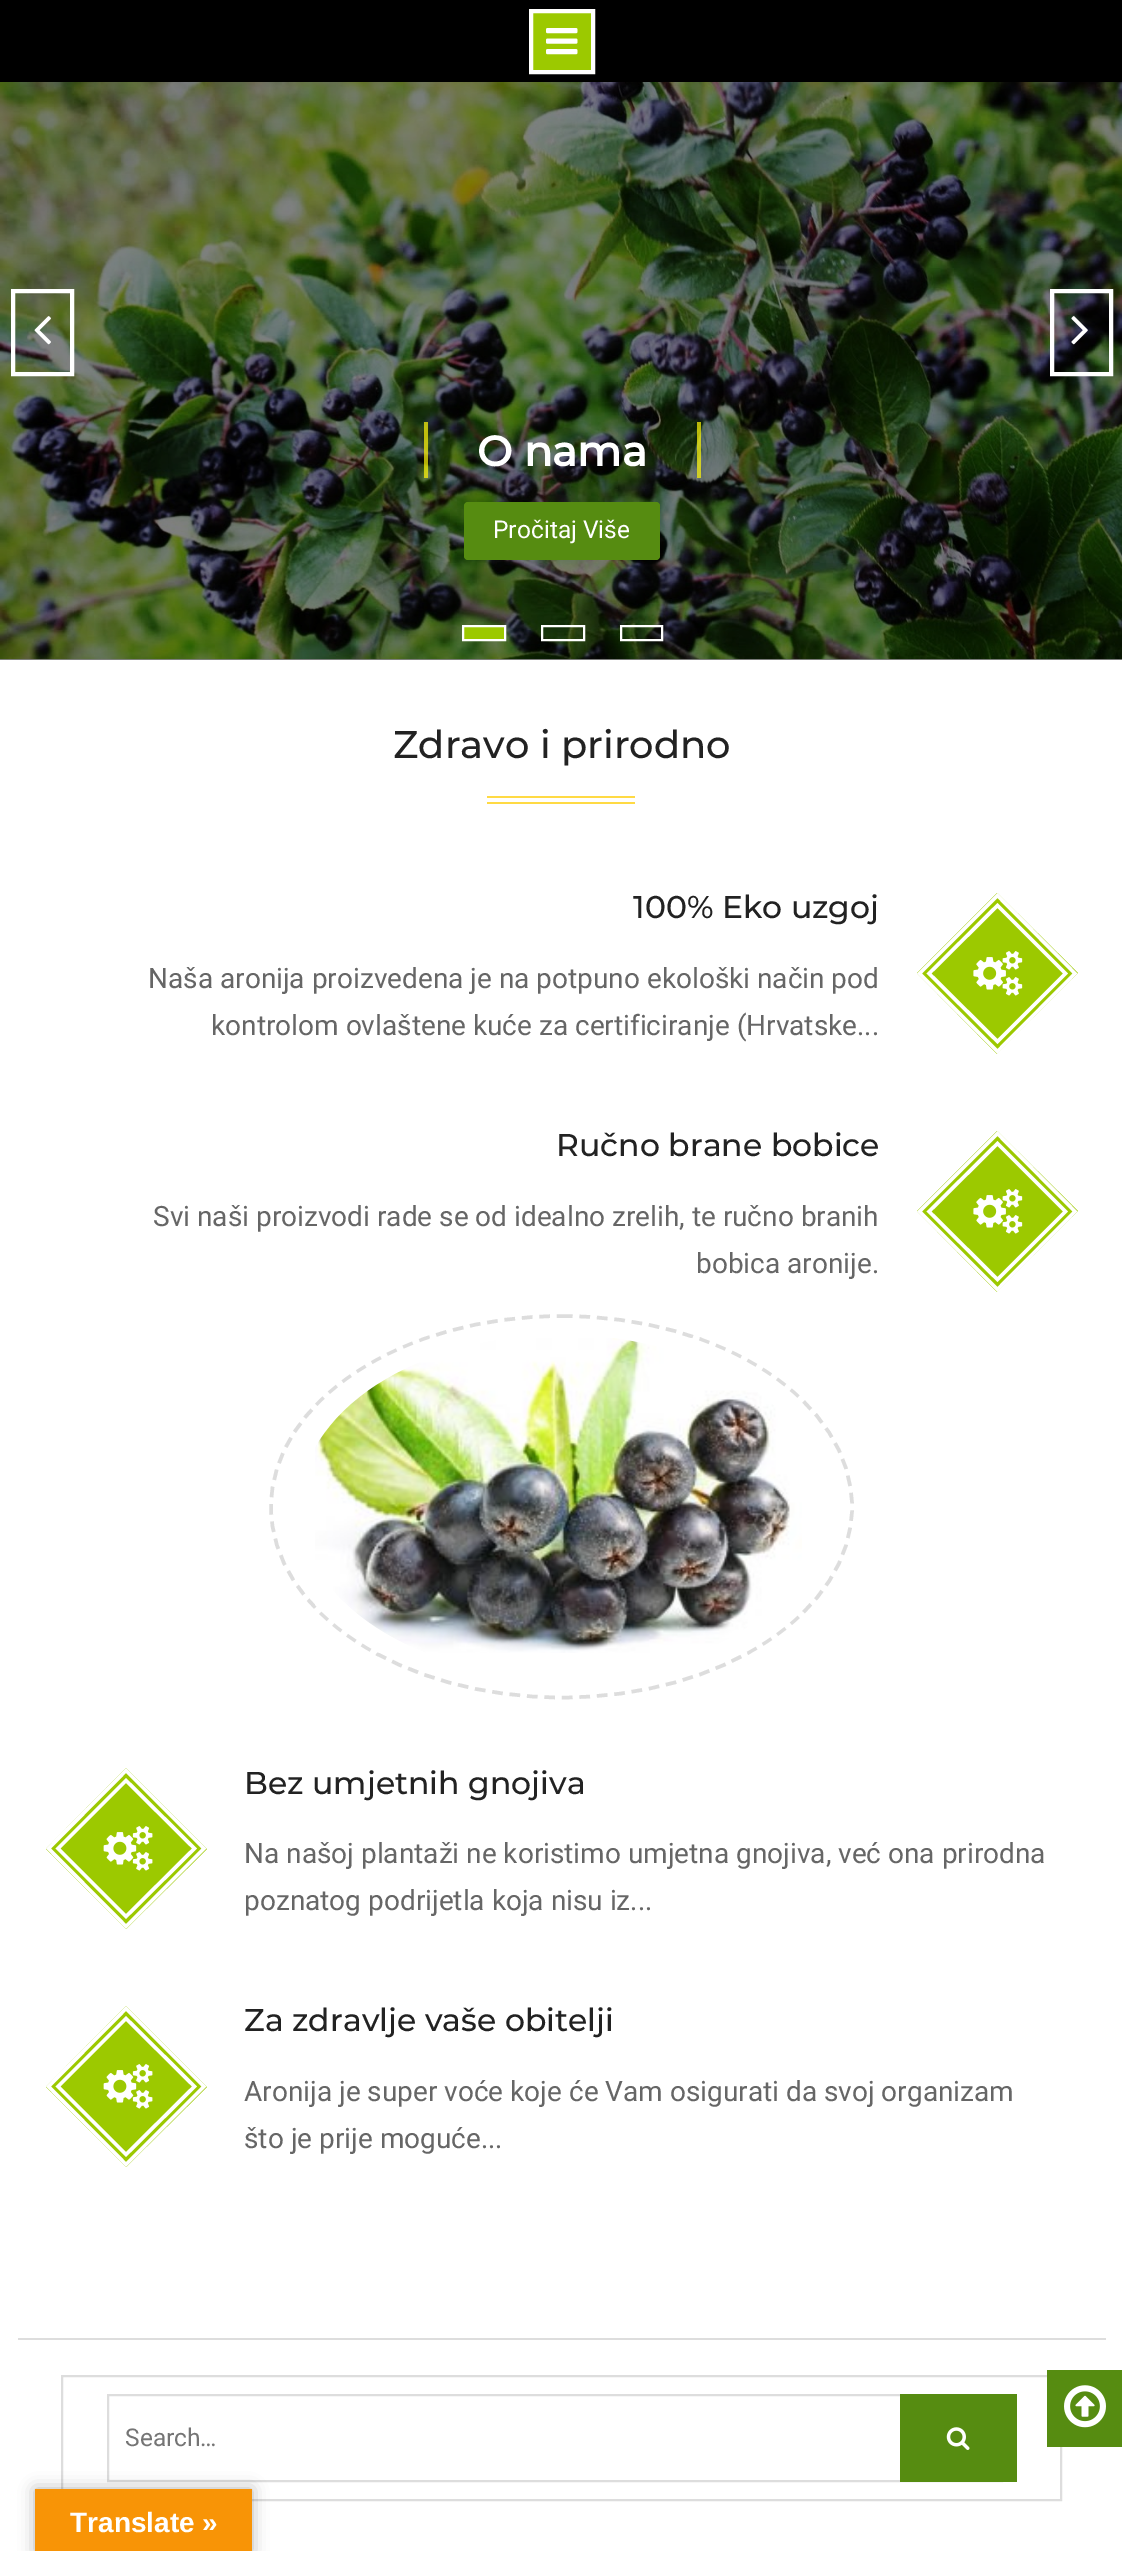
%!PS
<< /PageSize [1122 2551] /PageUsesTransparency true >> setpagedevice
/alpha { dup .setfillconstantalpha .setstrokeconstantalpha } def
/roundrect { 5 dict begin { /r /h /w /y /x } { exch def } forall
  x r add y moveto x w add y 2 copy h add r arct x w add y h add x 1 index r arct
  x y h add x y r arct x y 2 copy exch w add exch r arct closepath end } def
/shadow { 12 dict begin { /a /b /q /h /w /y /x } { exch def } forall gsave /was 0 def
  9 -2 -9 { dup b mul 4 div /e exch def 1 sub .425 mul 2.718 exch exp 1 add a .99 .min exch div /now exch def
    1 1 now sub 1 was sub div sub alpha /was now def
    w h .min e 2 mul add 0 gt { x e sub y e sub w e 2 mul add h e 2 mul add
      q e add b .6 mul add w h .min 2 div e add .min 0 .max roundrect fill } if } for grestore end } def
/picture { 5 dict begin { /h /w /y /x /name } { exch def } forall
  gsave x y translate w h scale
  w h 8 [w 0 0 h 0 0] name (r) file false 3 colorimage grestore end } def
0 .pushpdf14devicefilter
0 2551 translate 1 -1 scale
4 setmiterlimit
1 setgray
0 0 1122 2551 rectfill
0.502 setgray
0 659 1122 1 rectfill
0 setgray
0 0 1122 82 rectfill
0.612 0.788 0 setrgbcolor
newpath 531 11 moveto 593 11 lineto 593 72 lineto 531 72 lineto closepath gsave fill grestore
1 1 0.996 setrgbcolor
4 setlinewidth
stroke
(img1.rgb) 546 28 32 27 picture
(img4.rgb) 0 82 1122 578 picture
1 setgray
13 291 59 83 rectstroke
(img2.rgb) 34 316 17 29 picture
1052 291 59 83 rectstroke
(img3.rgb) 1071 316 17 29 picture
0.7 alpha
1 0.961 0.035 setrgbcolor
424 422 4 56 rectfill
/Montserrat-Bold [42 0 0 -42 0 0] selectfont
1 alpha
1 setgray
477 466 moveto (O nama) show
0.7 alpha
1 0.961 0.035 setrgbcolor
697 422 4 56 rectfill
1 alpha
0.337 0.549 0.067 setrgbcolor
464 502 196 58 4 roundrect fill
/Roboto-Regular [24.5 0 0 -24.5 0 0] selectfont
1 setgray
493 538 moveto (Pročitaj Više) show
0.612 0.788 0 setrgbcolor
newpath 463 626 moveto 505 626 lineto 505 640 lineto 463 640 lineto closepath gsave fill grestore
1 setgray
2 setlinewidth
stroke
542 626 42 14 rectstroke
621 626 41 14 rectstroke
/Montserrat-Medium [38.5 0 0 -38.5 0 0] selectfont
0.133 setgray
393 758 moveto (Zdravo i prirodno) show
1 0.855 0.267 setrgbcolor
487 796 148 2 rectfill
487 802 148 2 rectfill
/Montserrat-Medium [31.5 0 0 -31.5 0 0] selectfont
0.133 setgray
633 918 moveto (100% Eko uzgoj) show
/Roboto-Regular [28 0 0 -28 0 0] selectfont
0.4 setgray
148 988 moveto (Naša aronija proizvedena je na potpuno ekološki način pod) show
211 1035 moveto (kontrolom ovlaštene kuće za certificiranje \(Hrvatske...) show
0.612 0.788 0 setrgbcolor
newpath 997 893 moveto 1078 973 lineto 997 1054 lineto 917 973 lineto closepath fill
1 setgray
3.5 setlinewidth
newpath 997.5 895.5 moveto 1075 973.5 lineto 997.5 1051.5 lineto 919.5 973.5 lineto closepath stroke
newpath 997.5 905.5 moveto 1065.5 973.5 lineto 997.5 1041.5 lineto 929 973.5 lineto closepath stroke
(img5.rgb) 973 951 50 45 picture
/Montserrat-Medium [31.5 0 0 -31.5 0 0] selectfont
0.133 setgray
556 1156 moveto (Ručno brane bobice) show
/Roboto-Regular [28 0 0 -28 0 0] selectfont
0.4 setgray
153 1226 moveto (Svi naši proizvodi rade se od idealno zrelih, te ručno branih) show
696 1273 moveto (bobica aronije.) show
0.612 0.788 0 setrgbcolor
newpath 997 1131 moveto 1078 1211 lineto 997 1292 lineto 917 1211 lineto closepath fill
1 setgray
newpath 997.5 1133.5 moveto 1075 1211.5 lineto 997.5 1289.5 lineto 919.5 1211.5 lineto closepath stroke
newpath 997.5 1143.5 moveto 1065.5 1211.5 lineto 997.5 1279.5 lineto 929 1211.5 lineto closepath stroke
(img5.rgb) 973 1189 50 45 picture
gsave
newpath 562 1314 moveto 848 1314 1080 1403.5 1080 1514 curveto 1080 1624 848 1713 562 1713 curveto 275.5 1713 44 1624 44 1514 curveto 44 1403.5 275.5 1314 562 1314 curveto closepath clip newpath
0.867 setgray
[10.5 7] 0 setdash
newpath 562 1316 moveto 722 1316 852 1401.5 852 1507 curveto 852 1612 722 1697.5 562 1697.5 curveto 401.5 1697.5 271 1612 271 1507 curveto 271 1401.5 401.5 1316 562 1316 curveto closepath stroke
grestore
(img6.rgb) 315 1338 487 315 picture
0.612 0.788 0 setrgbcolor
newpath 126 1768 moveto 207 1849 lineto 126 1929 lineto 46 1849 lineto closepath fill
1 setgray
newpath 126 1770.5 moveto 204 1848.5 lineto 126 1926.5 lineto 48.5 1848.5 lineto closepath stroke
newpath 126 1780.5 moveto 194.5 1848.5 lineto 126 1916.5 lineto 58 1848.5 lineto closepath stroke
(img7.rgb) 103 1826 50 45 picture
/Montserrat-Medium [31.5 0 0 -31.5 0 0] selectfont
0.133 setgray
244 1794 moveto (Bez umjetnih gnojiva) show
/Roboto-Regular [28 0 0 -28 0 0] selectfont
0.4 setgray
244 1863 moveto (Na našoj plantaži ne koristimo umjetna gnojiva, već ona prirodna) show
244 1910 moveto (poznatog podrijetla koja nisu iz...) show
0.612 0.788 0 setrgbcolor
newpath 126 2006 moveto 207 2087 lineto 126 2167 lineto 46 2087 lineto closepath fill
1 setgray
newpath 126 2008.5 moveto 204 2086.5 lineto 126 2164.5 lineto 48.5 2086.5 lineto closepath stroke
newpath 126 2018.5 moveto 194.5 2086.5 lineto 126 2154.5 lineto 58 2086.5 lineto closepath stroke
(img7.rgb) 103 2064 50 45 picture
/Montserrat-Medium [31.5 0 0 -31.5 0 0] selectfont
0.133 setgray
244 2031 moveto (Za zdravlje vaše obitelji) show
/Roboto-Regular [28 0 0 -28 0 0] selectfont
0.4 setgray
244 2101 moveto (Aronija je super voće koje će Vam osigurati da svoj organizam) show
244 2148 moveto (što je prije moguće...) show
0.867 setgray
18 2338 1088 2 rectfill
2 setlinewidth
62 2376 999 124 rectstroke
108 2395 894 86 rectstroke
/Roboto-Regular [24.5 0 0 -24.5 0 0] selectfont
0.459 setgray
125 2446 moveto (Search…) show
0.337 0.549 0.067 setrgbcolor
900 2394 117 88 rectfill
(img8.rgb) 946 2427 24 23 picture
1047 2370 75 77 rectfill
(img9.rgb) 1064 2385 42 43 picture
0 setgray
35 2489 217 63 0 8 0.3 shadow
0.973 0.58 0.024 setrgbcolor
35 2489 217 62 rectfill
/LiberationSans-Bold [28 0 0 -28 0 0] selectfont
1 setgray
70 2532 moveto (Translate ») show
.poppdf14devicefilter showpage
